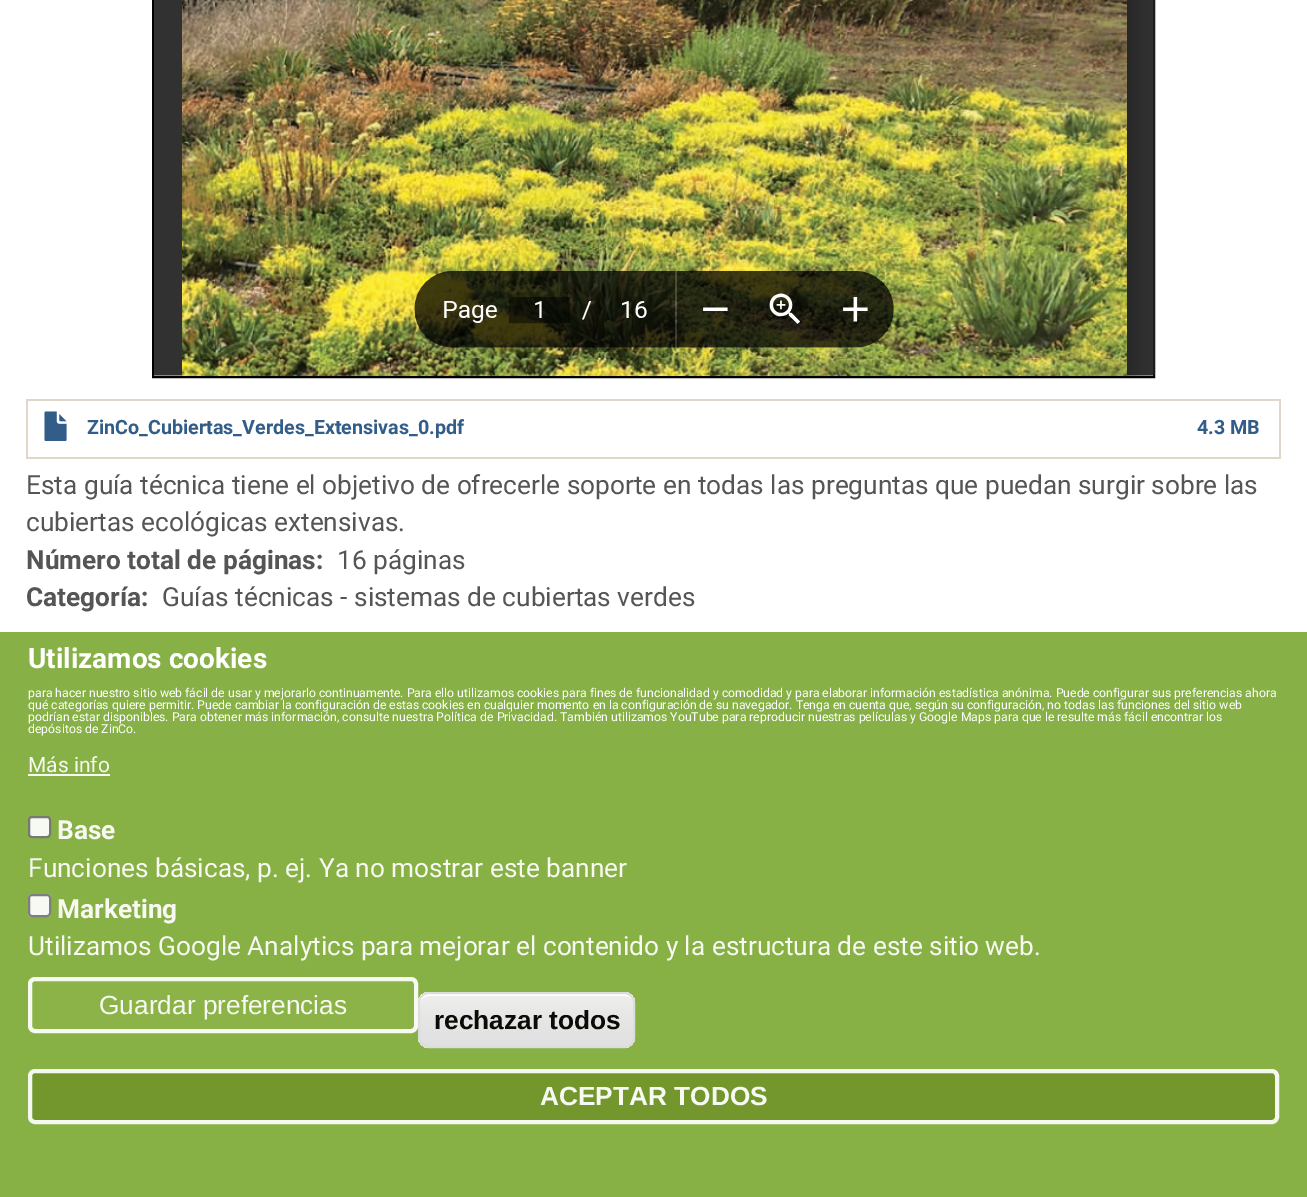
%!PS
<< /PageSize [1307 1197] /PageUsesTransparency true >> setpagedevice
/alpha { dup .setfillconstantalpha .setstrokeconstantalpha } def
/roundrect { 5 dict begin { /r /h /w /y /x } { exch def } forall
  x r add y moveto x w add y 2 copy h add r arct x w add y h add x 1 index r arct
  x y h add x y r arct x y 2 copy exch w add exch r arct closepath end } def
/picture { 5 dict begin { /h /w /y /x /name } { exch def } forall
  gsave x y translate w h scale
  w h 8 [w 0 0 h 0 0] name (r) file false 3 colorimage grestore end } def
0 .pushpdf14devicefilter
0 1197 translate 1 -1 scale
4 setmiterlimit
1 setgray
0 0 1307 1197 rectfill
0.529 0.69 0.275 setrgbcolor
0 632 1307 126 rectfill
0 setgray
2 setlinewidth
153 -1 1001 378 rectstroke
(img1.rgb) 154 0 1001 376 picture
0.875 0.843 0.792 setrgbcolor
26 399 1255 2 rectfill
26 457 1150 2 rectfill
26 399 2 60 rectfill
(img2.rgb) 44 411 23 30 picture
/Roboto-Bold [19.7 0 0 -19.7 0 0] selectfont
0.196 0.365 0.533 setrgbcolor
87 434 moveto (ZinCo_Cubiertas_Verdes_Extensivas_0.pdf) show
0.875 0.843 0.792 setrgbcolor
1279 399 2 60 rectfill
1176 457 105 2 rectfill
0.196 0.365 0.533 setrgbcolor
1197 434 moveto (4.3 MB) show
/Roboto-Regular [26.25 0 0 -26.25 0 0] selectfont
0.333 setgray
26 494 moveto (Esta guía técnica tiene el objetivo de ofrecerle soporte en todas las preguntas que puedan surgir sobre las) show
26 531 moveto (cubiertas ecológicas extensivas.) show
/Roboto-Bold [26.25 0 0 -26.25 0 0] selectfont
26 569 moveto (Número total de páginas:) show
/Roboto-Regular [26.25 0 0 -26.25 0 0] selectfont
337 569 moveto (16 páginas) show
/Roboto-Bold [26.25 0 0 -26.25 0 0] selectfont
26 606 moveto (Categoría:) show
/Roboto-Regular [26.25 0 0 -26.25 0 0] selectfont
162 606 moveto (Guías técnicas - sistemas de cubiertas verdes) show
0.529 0.69 0.271 setrgbcolor
0 758 1307 439 rectfill
/Roboto-Bold [28 0 0 -28 0 0] selectfont
1 setgray
28 668 moveto (Utilizamos cookies) show
/Roboto-Regular [12.25 0 0 -12.25 0 0] selectfont
28 697 moveto (para hacer nuestro sitio web fácil de usar y mejorarlo continuamente. Para ello utilizamos cookies para fines de funcionalidad y comodidad y para elaborar información estadística anónima. Puede configurar sus preferencias ahora) show
28 709 moveto (qué categorías quiere permitir. Puede cambiar la configuración de estas cookies en cualquier momento en la configuración de su navegador. Tenga en cuenta que, según su configuración, no todas las funciones del sitio web) show
28 721 moveto (podrían estar disponibles. Para obtener más información, consulte nuestra Política de Privacidad. También utilizamos YouTube para reproducir nuestras películas y Google Maps para que le resulte más fácil encontrar los) show
28 733 moveto (depósitos de ZinCo.) show
/Roboto-Regular [21 0 0 -21 0 0] selectfont
0.969 0.976 0.949 setrgbcolor
28 772 moveto (Más info) show
0.969 0.98 0.949 setrgbcolor
28 774 82 2 rectfill
29 817 21 20 3 roundrect gsave fill grestore
0.467 0.478 0.447 setrgbcolor
stroke
/Roboto-Bold [26.25 0 0 -26.25 0 0] selectfont
0.969 0.976 0.949 setrgbcolor
57 839 moveto (Base) show
/Roboto-Regular [26.25 0 0 -26.25 0 0] selectfont
28 877 moveto (Funciones básicas, p. ej. Ya no mostrar este banner) show
28 894 23 23 4 roundrect fill
0.93 alpha
0.463 setgray
29 895 21 21 3 roundrect stroke
/Roboto-Bold [26.25 0 0 -26.25 0 0] selectfont
1 alpha
0.969 0.976 0.949 setrgbcolor
57 918 moveto (Marketing) show
/Roboto-Regular [26.25 0 0 -26.25 0 0] selectfont
28 955 moveto (Utilizamos Google Analytics para mejorar el contenido y la estructura de este sitio web.) show
0.545 0.702 0.282 setrgbcolor
30 979 386 52 5 roundrect gsave fill grestore
0.969 0.98 0.949 setrgbcolor
4 setlinewidth
stroke
/LiberationSans-Regular [26.25 0 0 -26.25 0 0] selectfont
0.969 0.976 0.949 setrgbcolor
99 1014 moveto (Guardar preferencias) show
0.902 0.914 0.882 setrgbcolor
418 992 217 56 11 roundrect fill
gsave
418 992 217 56 11 roundrect clip newpath
0.93 alpha
gsave newpath 418 992 moveto 635 992 lineto 635 994 lineto 418 994 lineto closepath clip newpath
<< /ShadingType 2 /ColorSpace /DeviceRGB /Coords [527 942 527 994] /Extend [true true] /Function << /FunctionType 3 /Domain [0 1] /Functions [<< /FunctionType 2 /Domain [0 1] /C0 [0.929 0.929 0.929] /C1 [0.929 0.929 0.929] /N 1 >> << /FunctionType 2 /Domain [0 1] /C0 [0.929 0.929 0.929] /C1 [0.875 0.875 0.875] /N 1 >>] /Bounds [0.05] /Encode [0 1 0 1] >> >> shfill grestore
gsave newpath 418 994 moveto 635 994 lineto 635 1047 lineto 418 1047 lineto closepath clip newpath
<< /ShadingType 2 /ColorSpace /DeviceRGB /Coords [527 994 527 1047] /Extend [true true] /Function << /FunctionType 3 /Domain [0 1] /Functions [<< /FunctionType 2 /Domain [0 1] /C0 [0.929 0.929 0.929] /C1 [0.929 0.929 0.929] /N 1 >> << /FunctionType 2 /Domain [0 1] /C0 [0.929 0.929 0.929] /C1 [0.875 0.875 0.875] /N 1 >>] /Bounds [0.05] /Encode [0 1 0 1] >> >> shfill grestore
1 alpha
gsave newpath 418 1047 moveto 635 1047 lineto 635 1048 lineto 418 1048 lineto closepath clip newpath
<< /ShadingType 2 /ColorSpace /DeviceRGB /Coords [527 1047 527 1099] /Extend [true true] /Function << /FunctionType 3 /Domain [0 1] /Functions [<< /FunctionType 2 /Domain [0 1] /C0 [0.902 0.914 0.882] /C1 [0.902 0.914 0.882] /N 1 >> << /FunctionType 2 /Domain [0 1] /C0 [0.902 0.914 0.882] /C1 [0.851 0.863 0.831] /N 1 >>] /Bounds [0.05] /Encode [0 1 0 1] >> >> shfill grestore
grestore
0.996 setgray
newpath 429 996 moveto 625 996 lineto 630 996 634 1000 634 1004 curveto 634 1003 lineto 634 998 630 994 625 994 curveto 429 994 lineto 424 994 420 998 420 1003 curveto 420 1004 lineto 420 1000 424 996 429 996 curveto closepath fill
0.93 alpha
0.863 setgray
2 setlinewidth
419 993 215 54 10 roundrect stroke
/LiberationSans-Bold [26.25 0 0 -26.25 0 0] selectfont
1 alpha
0.039 0.051 0.02 setrgbcolor
434 1029 moveto (rechazar todos) show
0.451 0.592 0.176 setrgbcolor
28 1069 1251 55 7 roundrect fill
0.93 alpha
1 setgray
4 setlinewidth
30 1071 1247 51 5 roundrect stroke
1 alpha
0.969 0.976 0.949 setrgbcolor
540 1105 moveto (ACEPTAR TODOS) show
.poppdf14devicefilter showpage
